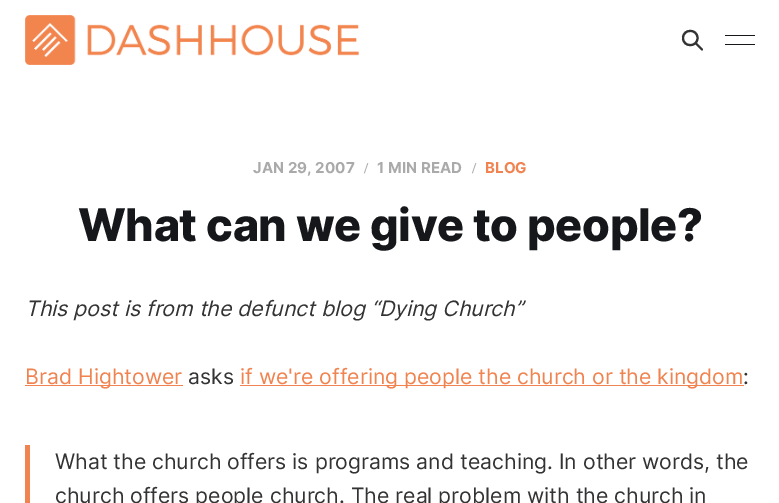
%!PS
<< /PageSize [779 503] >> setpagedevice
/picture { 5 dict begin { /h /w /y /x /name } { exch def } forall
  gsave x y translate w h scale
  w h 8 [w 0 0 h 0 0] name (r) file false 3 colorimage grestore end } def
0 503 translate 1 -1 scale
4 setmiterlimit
1 setgray
0 0 779 503 rectfill
(img1.rgb) 25 15 334 50 picture
0.2 setgray
2.1 setlinewidth
1 setlinecap
1 setlinejoin
newpath 702 49.5 moveto 695.5 43 lineto 697.5 38 moveto 697.5 47.5 683 47.5 683 38 curveto 683 28.5 697.5 28.5 697.5 38 curveto closepath stroke
0.082 0.09 0.102 setrgbcolor
725 35 30 1 rectfill
725 44 30 1 rectfill
/Inter-Bold [15 0 0 -15 0 0] selectfont
0.667 setgray
253 173 moveto 0.1 0 (JAN 29, 2007) ashow
/LiberationSerif-Bold [15 0 0 -15 0 0] selectfont
364 173 moveto 0.1 0 (/) ashow
/Inter-Bold [15 0 0 -15 0 0] selectfont
377 173 moveto 0.1 0 (1 MIN READ) ashow
/LiberationSerif-Bold [15 0 0 -15 0 0] selectfont
472 173 moveto 0.1 0 (/) ashow
/Inter-Bold [15 0 0 -15 0 0] selectfont
0.941 0.514 0.31 setrgbcolor
485 173 moveto 0.1 0 (BLOG) ashow
/Inter-ExtraBold [45 0 0 -45 0 0] selectfont
0.082 0.09 0.102 setrgbcolor
78 241 moveto -0.45 0 (What can we give to people?) ashow
/Inter-Italic [21.25 0 0 -21.25 0 0] selectfont
0.2 setgray
25 316 moveto (This post is from the defunct blog “Dying Church”) show
0.941 0.514 0.31 setrgbcolor
25 385 158 1 rectfill
/Inter-Regular [21.25 0 0 -21.25 0 0] selectfont
25 384 moveto (Brad Hightower) show
0.2 setgray
188 384 moveto (asks) show
0.941 0.514 0.31 setrgbcolor
240 385 504 1 rectfill
240 384 moveto (if we're offering people the church or the kingdom) show
0.2 setgray
743 384 moveto (:) show
0.941 0.514 0.31 setrgbcolor
25 445 5 58 rectfill
0.2 setgray
55 469 moveto (What the church offers is programs and teaching. In other words, the) show
55 503 moveto (church offers people church. The real problem with the church in) show
showpage
